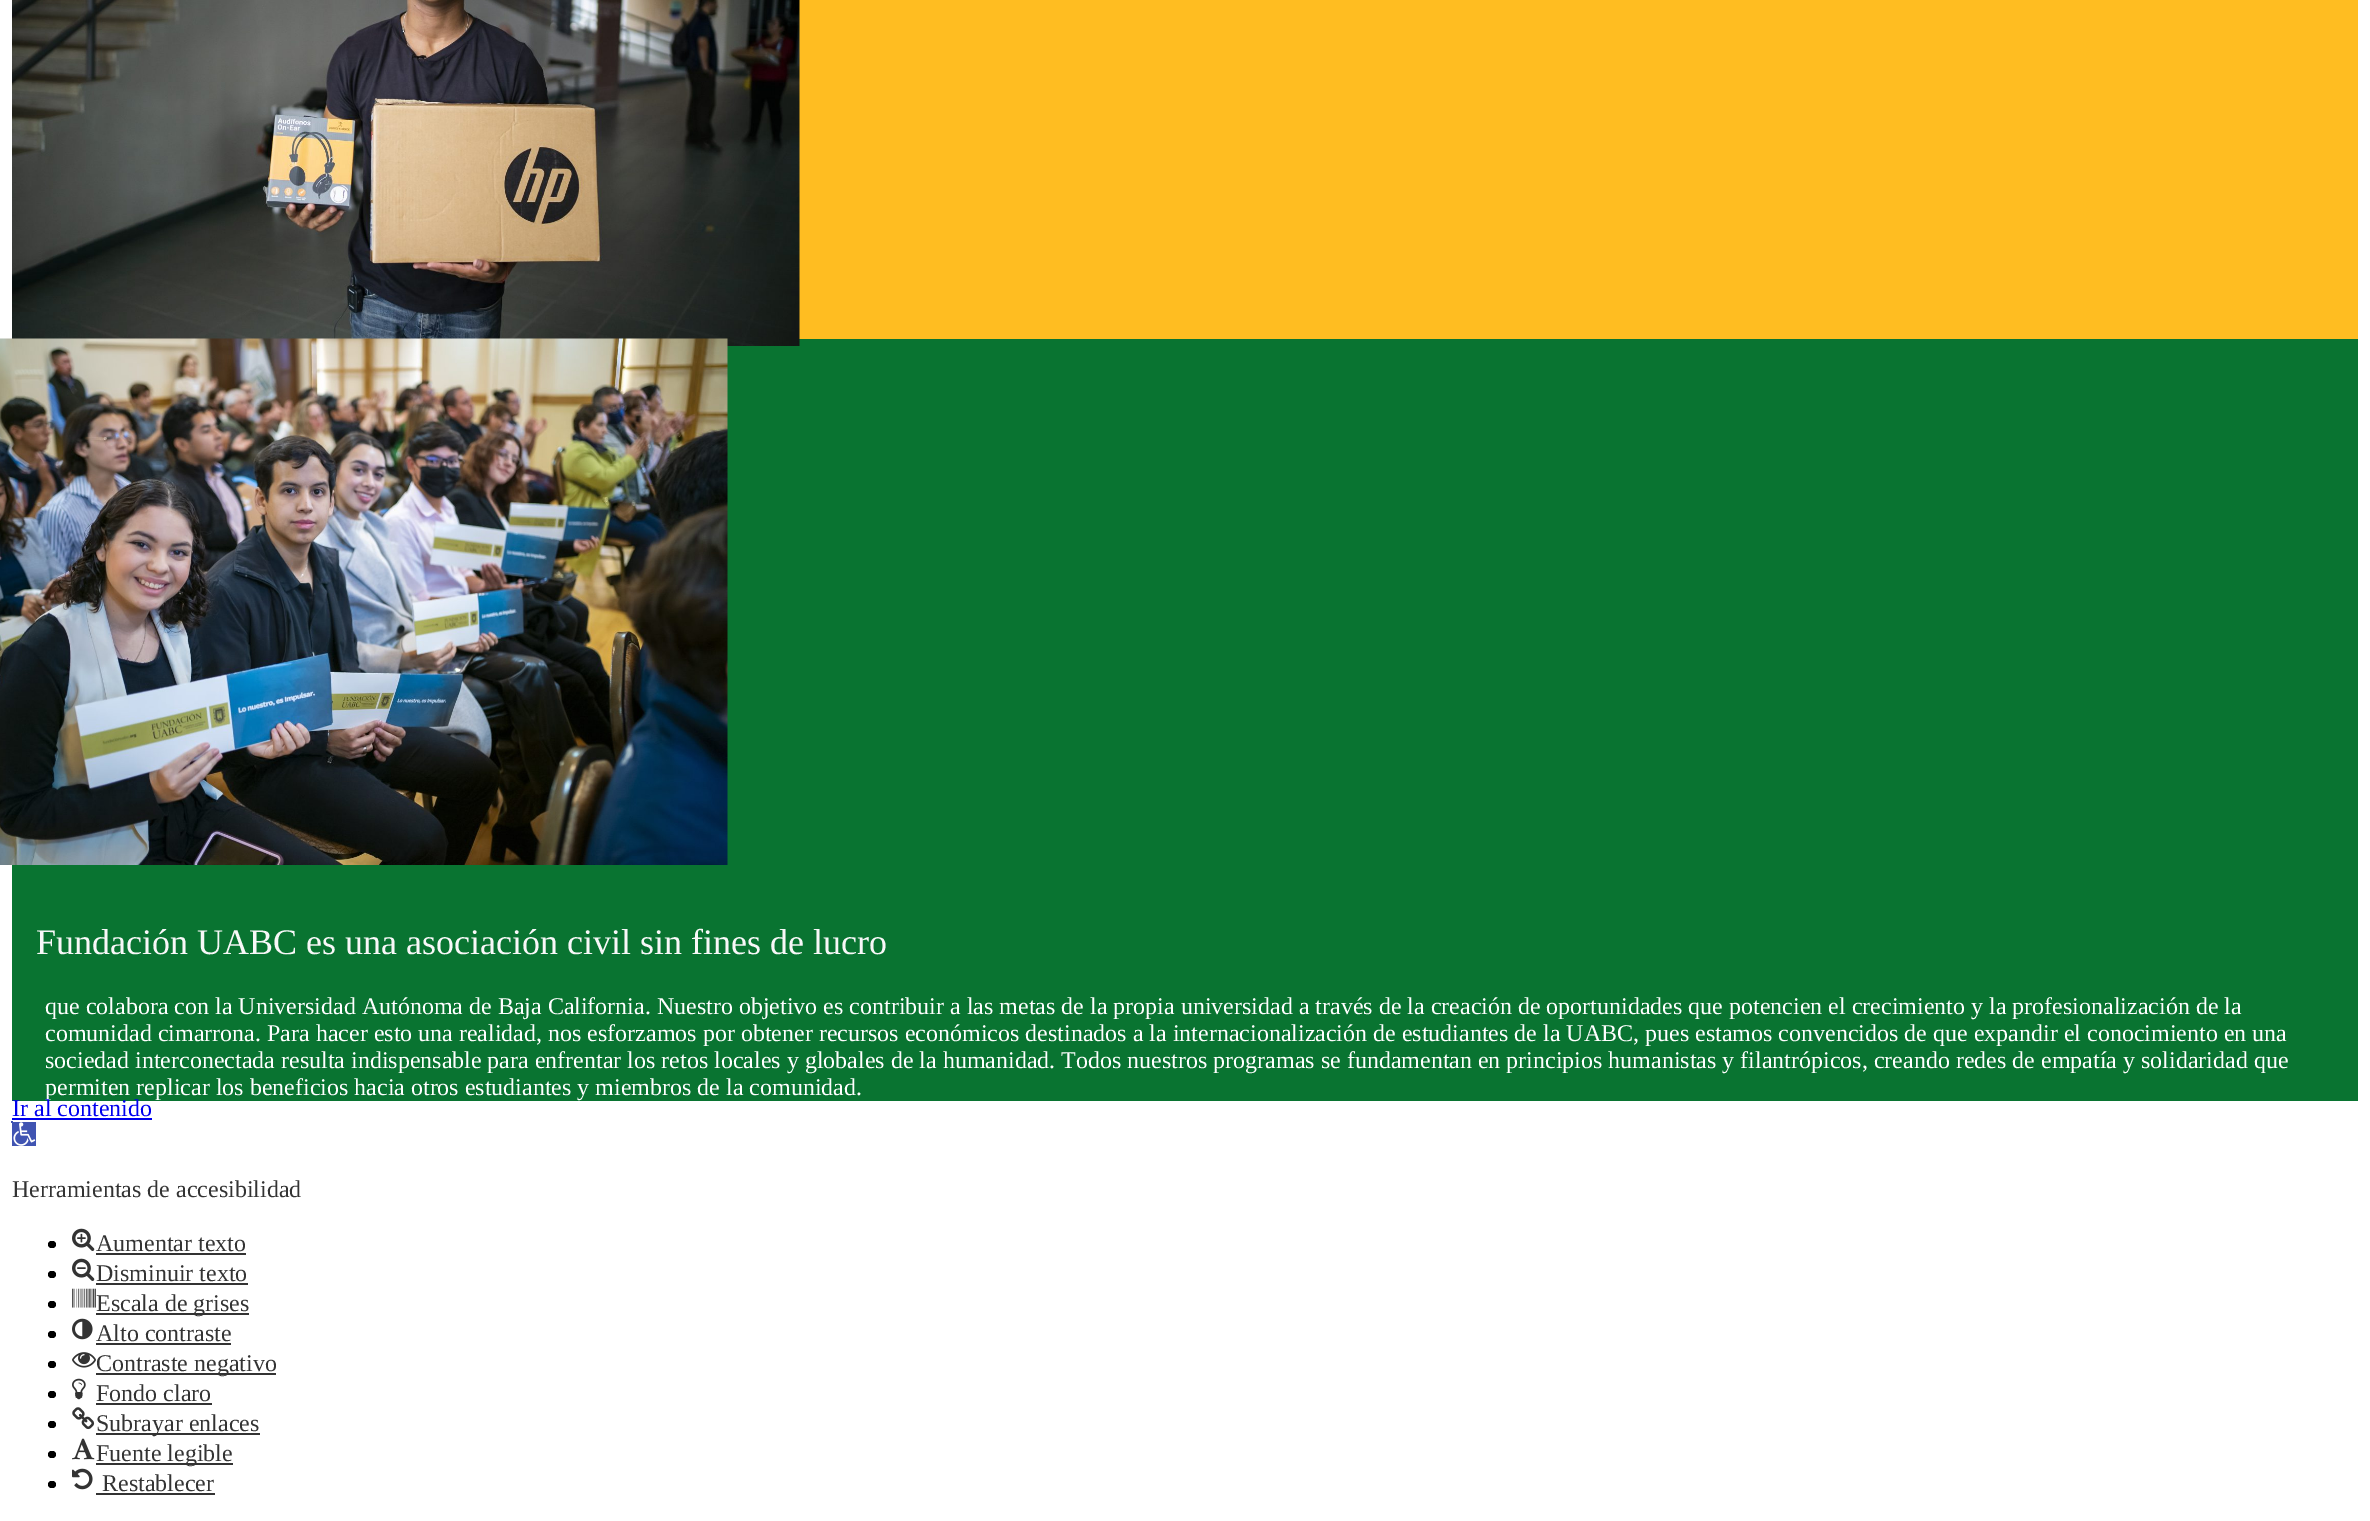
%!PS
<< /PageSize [2370 1521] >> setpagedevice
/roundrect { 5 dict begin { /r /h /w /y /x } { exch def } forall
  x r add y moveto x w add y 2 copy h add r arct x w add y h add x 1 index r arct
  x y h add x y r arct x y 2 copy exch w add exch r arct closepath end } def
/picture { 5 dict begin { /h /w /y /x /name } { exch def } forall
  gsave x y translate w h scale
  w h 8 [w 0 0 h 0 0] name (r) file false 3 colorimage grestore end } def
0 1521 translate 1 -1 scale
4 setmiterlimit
1 setgray
0 0 2370 1521 rectfill
1 0.741 0.129 setrgbcolor
799 0 1559 339 rectfill
0.035 0.455 0.192 setrgbcolor
12 339 2346 762 rectfill
(img1.rgb) 12 0 788 346 picture
(img2.rgb) 0 338 728 527 picture
/LiberationSerif-Regular [36 0 0 -36 0 0] selectfont
0.973 setgray
36 954 moveto (Fundación UABC es una asociación civil sin fines de lucro) show
/LiberationSerif-Regular [24 0 0 -24 0 0] selectfont
1 setgray
45 1014 moveto (que colabora con la Universidad Autónoma de Baja California. Nuestro objetivo es contribuir a las metas de la propia universidad a través de la creación de oportunidades que potencien el crecimiento y la profesionalización de la) show
45 1041 moveto (comunidad cimarrona. Para hacer esto una realidad, nos esforzamos por obtener recursos económicos destinados a la internacionalización de estudiantes de la UABC, pues estamos convencidos de que expandir el conocimiento en una) show
45 1068 moveto (sociedad interconectada resulta indispensable para enfrentar los retos locales y globales de la humanidad. Todos nuestros programas se fundamentan en principios humanistas y filantrópicos, creando redes de empatía y solidaridad que) show
45 1095 moveto (permiten replicar los beneficios hacia otros estudiantes y miembros de la comunidad.) show
0 0 0.933 setrgbcolor
12 1116 moveto (Ir al contenido) show
12 1118 140 2 rectfill
0.251 0.329 0.698 setrgbcolor
11 1121 2 2 rectfill
12 1122 24 24 rectfill
(img3.rgb) 13 1122 23 24 picture
0.2 setgray
12 1197 moveto (Herramientas de accesibilidad) show
0 setgray
48 1241 8 7 3.5 roundrect fill
(img4.rgb) 72 1228 23 23 picture
0.2 setgray
96 1251 moveto (Aumentar texto) show
96 1253 150 2 rectfill
0 setgray
48 1271 8 7 3.5 roundrect fill
(img5.rgb) 72 1258 23 23 picture
0.2 setgray
96 1281 moveto (Disminuir texto) show
96 1283 152 2 rectfill
0 setgray
48 1301 8 7 3.5 roundrect fill
(img6.rgb) 72 1288 24 20 picture
0.2 setgray
96 1313 153 2 rectfill
96 1311 moveto (Escala de grises) show
0 setgray
48 1331 8 7 3.5 roundrect fill
(img7.rgb) 72 1318 21 22 picture
0.2 setgray
96 1341 moveto (Alto contraste) show
96 1343 135 2 rectfill
0 setgray
48 1361 8 7 3.5 roundrect fill
(img8.rgb) 72 1352 24 16 picture
0.2 setgray
96 1373 180 2 rectfill
96 1371 moveto (Contraste negativo) show
0 setgray
48 1391 8 7 3.5 roundrect fill
(img9.rgb) 72 1378 14 22 picture
0.2 setgray
96 1401 moveto (Fondo claro) show
96 1403 116 2 rectfill
0 setgray
48 1421 8 7 3.5 roundrect fill
(img10.rgb) 72 1407 23 23 picture
0.2 setgray
96 1433 164 2 rectfill
96 1431 moveto (Subrayar enlaces) show
0 setgray
48 1451 8 7 3.5 roundrect fill
(img11.rgb) 72 1438 23 22 picture
0.2 setgray
96 1463 137 2 rectfill
96 1461 moveto (Fuente legible) show
0 setgray
48 1481 8 7 3.5 roundrect fill
(img12.rgb) 72 1468 21 22 picture
0.2 setgray
102 1491 moveto (Restablecer) show
96 1493 119 2 rectfill
showpage
